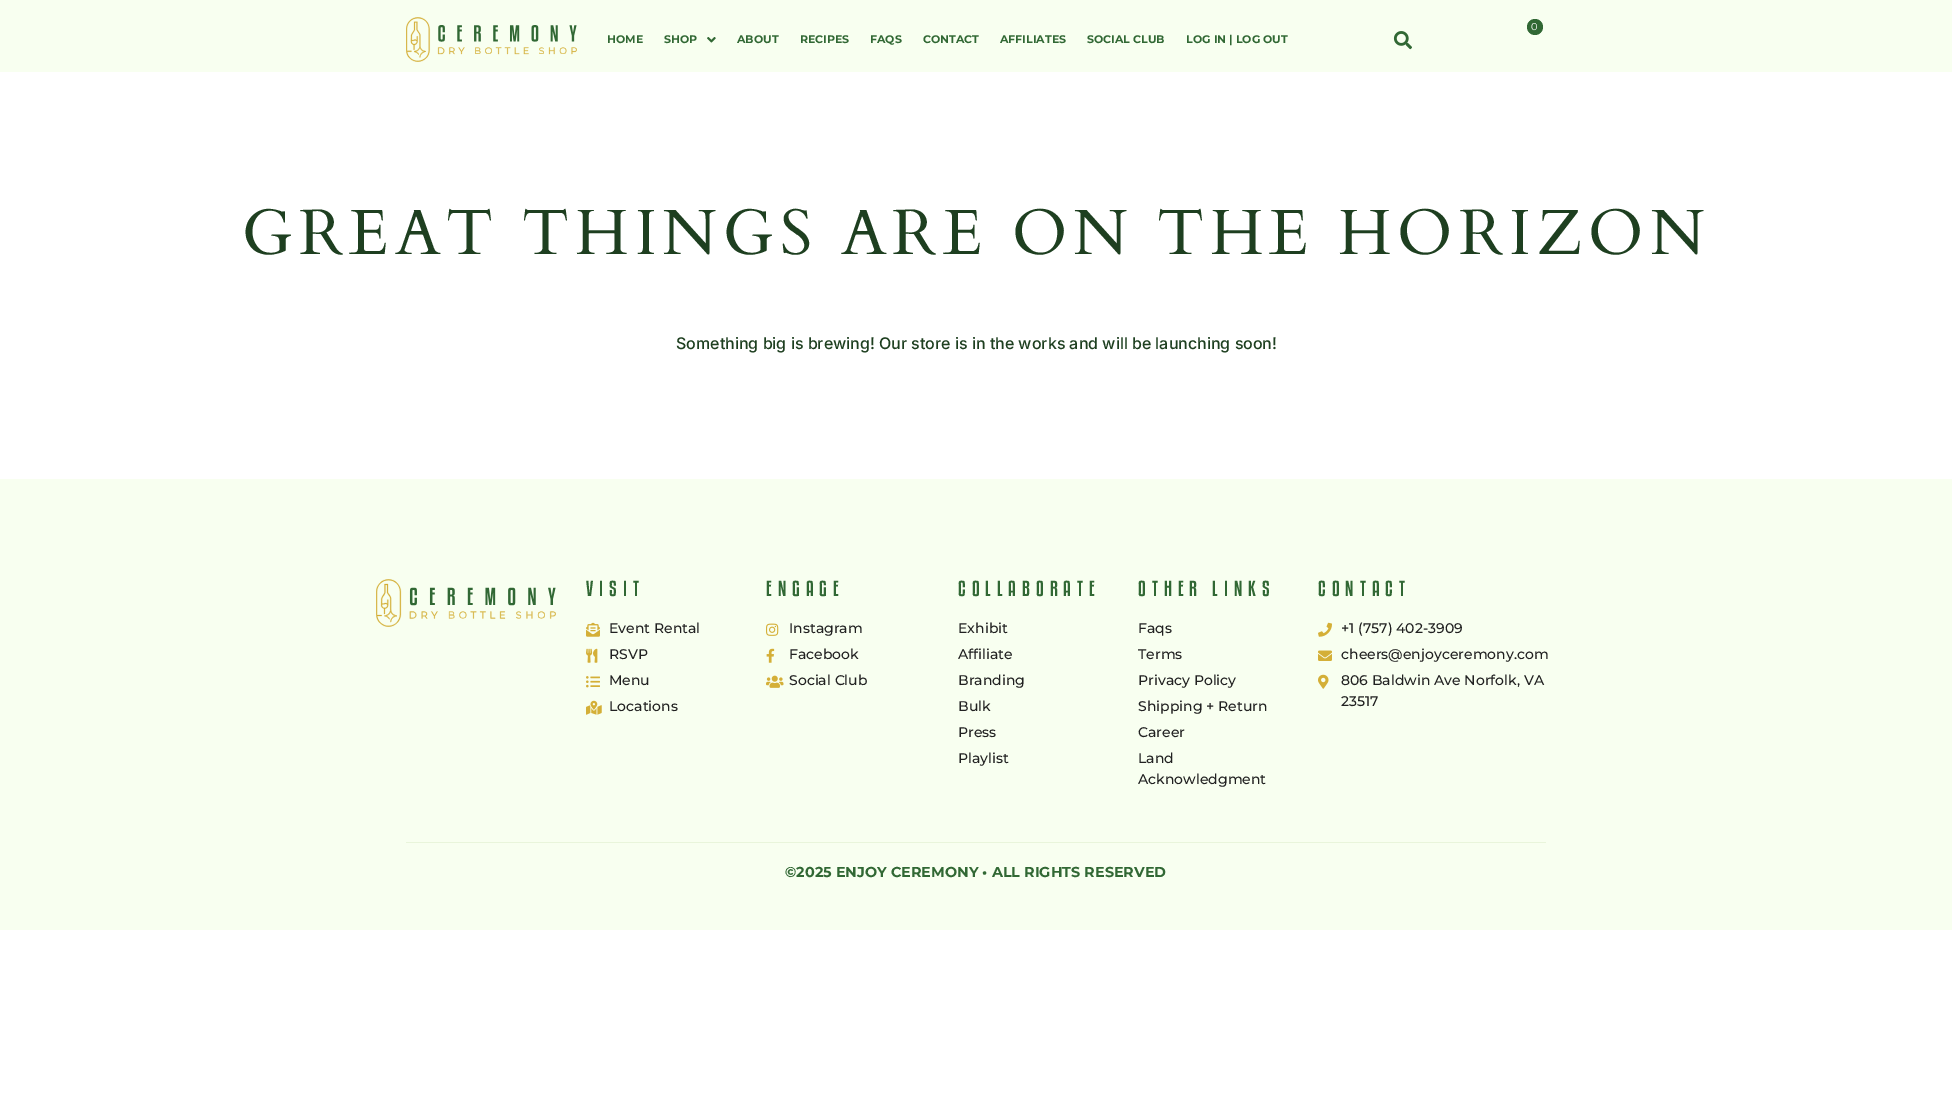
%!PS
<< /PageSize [1952 1108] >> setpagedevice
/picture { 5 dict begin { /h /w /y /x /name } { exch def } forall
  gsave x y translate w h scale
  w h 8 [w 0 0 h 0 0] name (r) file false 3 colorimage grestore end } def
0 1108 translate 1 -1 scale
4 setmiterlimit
1 setgray
0 0 1952 1108 rectfill
0.973 1 0.941 setrgbcolor
0 0 1952 72 rectfill
(img1.rgb) 406 17 171 45 picture
0.192 0.408 0.204 setrgbcolor
newpath 1535 27 8 0 360 arc closepath fill
/Montserrat-Regular [10 0 0 -10 0 0] selectfont
1 setgray
1531 30 moveto (0) show
/Montserrat-Bold [11 0 0 -11 0 0] selectfont
0.192 0.408 0.204 setrgbcolor
607 43 moveto (HOME) show
664 43 moveto (SHOP) show
(img2.rgb) 707 37 9 6 picture
737 43 moveto (ABOUT) show
800 43 moveto (RECIPES) show
870 43 moveto (FAQS) show
923 43 moveto (CONTACT) show
1000 43 moveto (AFFILIATES) show
1087 43 moveto (SOCIAL CLUB) show
1186 43 moveto (LOG IN | LOG OUT) show
(img3.rgb) 1393 31 19 19 picture
/Cardo-Regular [64 0 0 -64 0 0] selectfont
0.118 0.247 0.125 setrgbcolor
242 254 moveto 6 0 (GREAT THINGS ARE ON THE HORIZON) ashow
/Inter-Medium [16 0 0 -16 0 0] selectfont
676 349 moveto (Something big is brewing! Our store is in the works and will be launching soon!) show
0.973 1 0.941 setrgbcolor
0 479 1952 451 rectfill
(img4.rgb) 376 579 180 48 picture
/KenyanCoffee-Regular [19.25 0 0 -19.25 0 0] selectfont
0.192 0.408 0.204 setrgbcolor
586 596 moveto 6 0 (VISIT) ashow
(img5.rgb) 586 622 14 15 picture
/Montserrat-Medium [14 0 0 -14 0 0] selectfont
0.129 setgray
609 633 moveto (Event Rental) show
(img6.rgb) 586 648 12 15 picture
609 659 moveto (RSVP) show
(img7.rgb) 586 676 14 12 picture
609 685 moveto (Menu) show
(img8.rgb) 586 700 16 15 picture
609 711 moveto (Locations) show
/KenyanCoffee-Regular [19.25 0 0 -19.25 0 0] selectfont
0.192 0.408 0.204 setrgbcolor
766 596 moveto 6 0 (ENGAGE) ashow
(img9.rgb) 766 623 13 13 picture
/Montserrat-Medium [14 0 0 -14 0 0] selectfont
0.129 setgray
789 633 moveto (Instagram) show
(img10.rgb) 766 648 9 15 picture
789 659 moveto (Facebook) show
(img11.rgb) 766 675 18 13 picture
789 685 moveto (Social Club) show
/KenyanCoffee-Regular [19.25 0 0 -19.25 0 0] selectfont
0.192 0.408 0.204 setrgbcolor
958 596 moveto 6 0 (COLLABORATE) ashow
/Montserrat-Medium [14 0 0 -14 0 0] selectfont
0.129 setgray
958 633 moveto (Exhibit) show
958 659 moveto (Affiliate) show
958 685 moveto (Branding) show
958 711 moveto (Bulk) show
958 737 moveto (Press) show
958 763 moveto (Playlist) show
/KenyanCoffee-Regular [19.25 0 0 -19.25 0 0] selectfont
0.192 0.408 0.204 setrgbcolor
1138 596 moveto 6 0 (OTHER LINKS) ashow
/Montserrat-Medium [14 0 0 -14 0 0] selectfont
0.129 setgray
1138 633 moveto (Faqs) show
1138 659 moveto (Terms) show
1138 685 moveto (Privacy Policy) show
1138 711 moveto (Shipping + Return) show
1138 737 moveto (Career) show
1138 763 moveto (Land) show
1138 784 moveto (Acknowledgment) show
/KenyanCoffee-Regular [19.25 0 0 -19.25 0 0] selectfont
0.192 0.408 0.204 setrgbcolor
1318 596 moveto 6 0 (CONTACT) ashow
(img12.rgb) 1318 622 14 15 picture
/Montserrat-Medium [14 0 0 -14 0 0] selectfont
0.129 setgray
1341 633 moveto (+1 \(757\) 402-3909) show
(img13.rgb) 1318 650 14 11 picture
1341 659 moveto (cheers@enjoyceremony.com) show
(img14.rgb) 1318 674 11 15 picture
1341 685 moveto (806 Baldwin Ave Norfolk, VA) show
1341 706 moveto (23517) show
0.914 0.961 0.859 setrgbcolor
406 842 1140 1 rectfill
/Montserrat-Bold [14.4 0 0 -14.4 0 0] selectfont
0.192 0.408 0.204 setrgbcolor
785 877 moveto (©2025 ENJOY CEREMONY • ALL RIGHTS RESERVED) show
showpage
